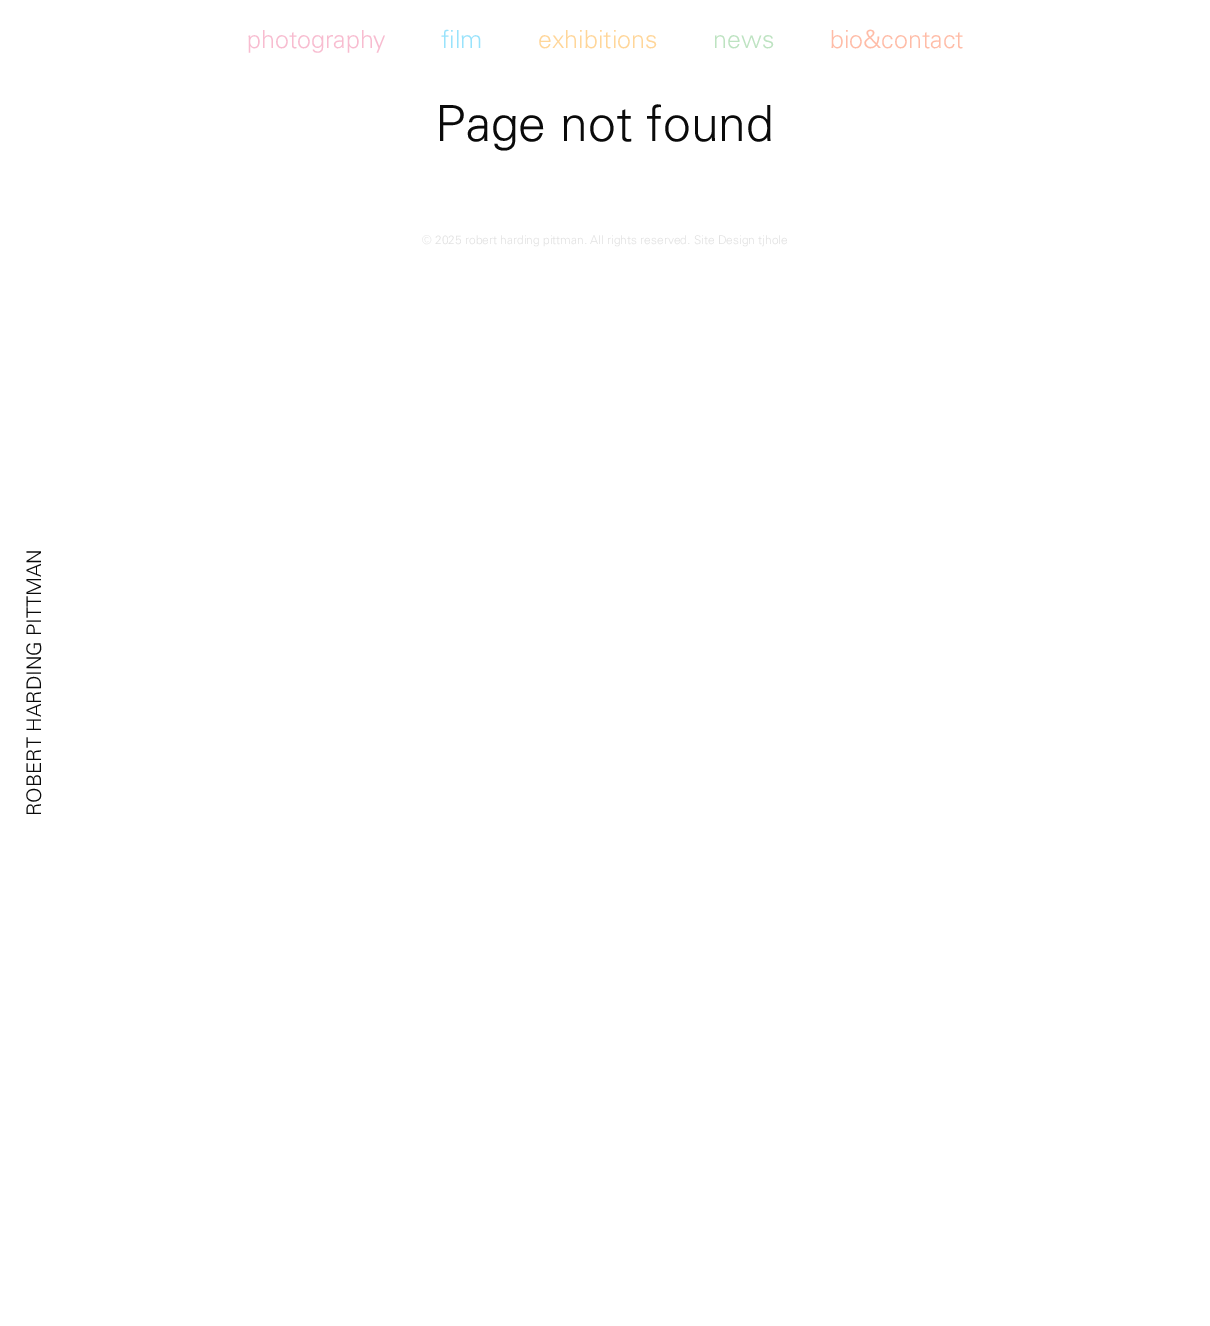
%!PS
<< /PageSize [1210 1326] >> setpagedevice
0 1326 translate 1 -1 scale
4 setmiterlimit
1 setgray
0 0 1210 1326 rectfill
/Univers-Regular [25 0 0 -25 0 0] selectfont
0.973 0.737 0.816 setrgbcolor
247 48 moveto (photography) show
0.6 0.89 0.988 setrgbcolor
441 48 moveto (film) show
1 0.839 0.6 setrgbcolor
538 48 moveto (exhibitions) show
0.741 0.89 0.757 setrgbcolor
713 48 moveto (news) show
1 0.737 0.655 setrgbcolor
830 48 moveto (bio&contact) show
/Univers-Regular [50 0 0 -50 0 0] selectfont
0.039 setgray
435 141 moveto (Page not found) show
/Univers-Regular [12 0 0 -12 0 0] selectfont
0.886 setgray
422 244 moveto (© 2025 robert harding pittman. All rights reserved. Site Design tjhole) show
/Univers-Regular [20 0 0 -20 0 0] selectfont
0.039 setgray
gsave 41 816 translate -90 rotate 0 0 moveto (ROBERT HARDING PITTMAN) show grestore
showpage
